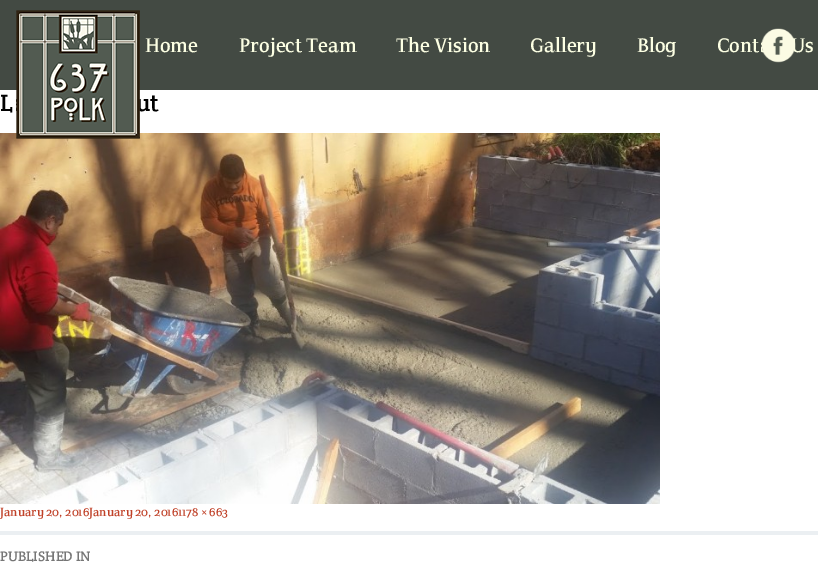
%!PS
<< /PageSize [818 567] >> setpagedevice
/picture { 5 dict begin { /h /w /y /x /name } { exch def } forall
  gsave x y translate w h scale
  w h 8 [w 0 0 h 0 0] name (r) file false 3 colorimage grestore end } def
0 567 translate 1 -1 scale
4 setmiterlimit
1 setgray
0 0 818 567 rectfill
0.263 0.29 0.263 setrgbcolor
0 0 818 90 rectfill
/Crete-Bold [24 0 0 -24 0 0] selectfont
0 setgray
136 111 moveto (ut) show
(img3.rgb) 0 133 660 371 picture
(img1.rgb) 16 10 124 129 picture
/Crete-Thin [20 0 0 -20 0 0] selectfont
0.988 1 0.89 setrgbcolor
791 52 moveto (Us) show
(img2.rgb) 761 28 35 35 picture
145 52 moveto (Home) show
239 52 moveto (Project Team) show
396 52 moveto (The Vision) show
530 52 moveto (Gallery) show
637 52 moveto (Blog) show
717 52 moveto (Cont) show
/Crete-Bold [24 0 0 -24 0 0] selectfont
0 setgray
0 111 moveto (L) show
/Crete-Thin [12 0 0 -12 0 0] selectfont
0.753 0.255 0.157 setrgbcolor
0 516 moveto (January 20, 2016January 20, 20161178 × 663) show
0.922 0.937 0.949 setrgbcolor
0 531 818 4 rectfill
/Crete-Bold [14 0 0 -14 0 0] selectfont
0.463 setgray
0 561 moveto (PUBLISHED IN) show
showpage
